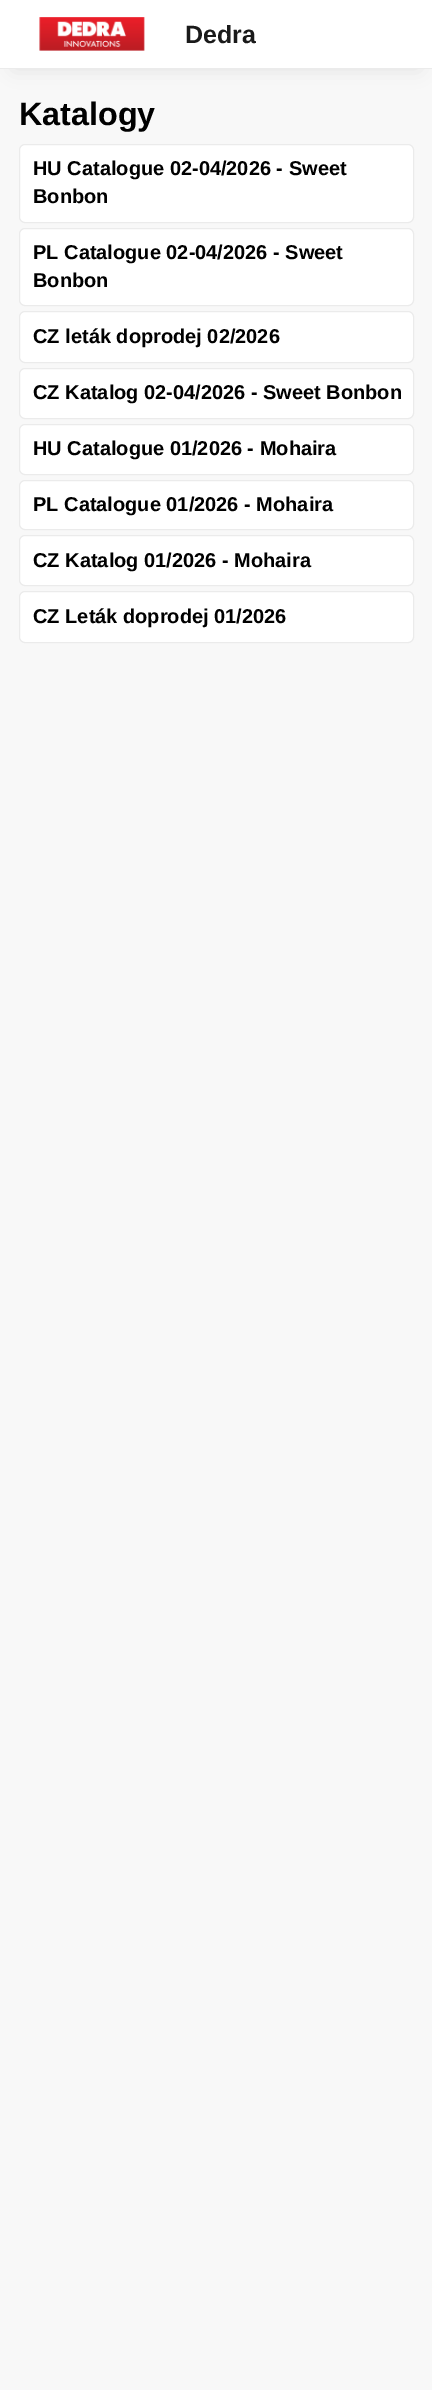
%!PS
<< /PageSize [432 2390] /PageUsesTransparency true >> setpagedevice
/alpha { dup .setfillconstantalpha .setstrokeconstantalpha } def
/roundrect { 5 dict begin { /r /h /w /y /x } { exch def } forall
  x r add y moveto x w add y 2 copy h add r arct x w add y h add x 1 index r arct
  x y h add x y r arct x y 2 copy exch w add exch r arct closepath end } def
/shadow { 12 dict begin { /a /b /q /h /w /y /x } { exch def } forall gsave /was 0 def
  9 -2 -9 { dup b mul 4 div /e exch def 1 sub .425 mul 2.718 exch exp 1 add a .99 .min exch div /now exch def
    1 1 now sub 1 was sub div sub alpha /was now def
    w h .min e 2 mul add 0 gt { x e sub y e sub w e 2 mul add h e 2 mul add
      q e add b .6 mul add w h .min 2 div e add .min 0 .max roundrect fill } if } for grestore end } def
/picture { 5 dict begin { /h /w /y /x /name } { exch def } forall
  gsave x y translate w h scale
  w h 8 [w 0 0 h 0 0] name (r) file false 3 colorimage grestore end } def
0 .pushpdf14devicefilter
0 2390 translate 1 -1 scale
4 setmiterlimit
0.973 setgray
0 0 432 2390 rectfill
0 setgray
14 26 405 42 0 9.5 0.1 shadow
1 setgray
0 0 432 68 rectfill
0.922 setgray
0 68 432 1 rectfill
(img1.rgb) 39 17 106 34 picture
/LiberationSans-Bold [25 0 0 -25 0 0] selectfont
0.102 setgray
185 43 moveto (Dedra) show
/LiberationSans-Bold [32.25 0 0 -32.25 0 0] selectfont
0 setgray
19 125 moveto (Katalogy) show
1 setgray
19.5 144.5 394 78 5.5 roundrect gsave fill grestore
0.922 setgray
stroke
/LiberationSans-Bold [20 0 0 -20 0 0] selectfont
0 setgray
33 175 moveto (HU Catalogue 02-04/2026 - Sweet) show
33 203 moveto (Bonbon) show
1 setgray
19.5 228.5 394 77 5.5 roundrect gsave fill grestore
0.922 setgray
stroke
0 setgray
33 259 moveto (PL Catalogue 02-04/2026 - Sweet) show
33 287 moveto (Bonbon) show
1 setgray
19.5 311.5 394 51 5.5 roundrect gsave fill grestore
0.922 setgray
stroke
0 setgray
33 343 moveto (CZ leták doprodej 02/2026) show
1 setgray
19.5 368.5 394 50 5.5 roundrect gsave fill grestore
0.922 setgray
stroke
0 setgray
33 399 moveto (CZ Katalog 02-04/2026 - Sweet Bonbon) show
1 setgray
19.5 424.5 394 50 5.5 roundrect gsave fill grestore
0.922 setgray
stroke
0 setgray
33 455 moveto (HU Catalogue 01/2026 - Mohaira) show
1 setgray
19.5 480.5 394 49 5.5 roundrect gsave fill grestore
0.922 setgray
stroke
0 setgray
33 511 moveto (PL Catalogue 01/2026 - Mohaira) show
1 setgray
19.5 535.5 394 50 5.5 roundrect gsave fill grestore
0.922 setgray
stroke
0 setgray
33 567 moveto (CZ Katalog 01/2026 - Mohaira) show
1 setgray
19.5 591.5 394 51 5.5 roundrect gsave fill grestore
0.922 setgray
stroke
0 setgray
33 623 moveto (CZ Leták doprodej 01/2026) show
.poppdf14devicefilter showpage
